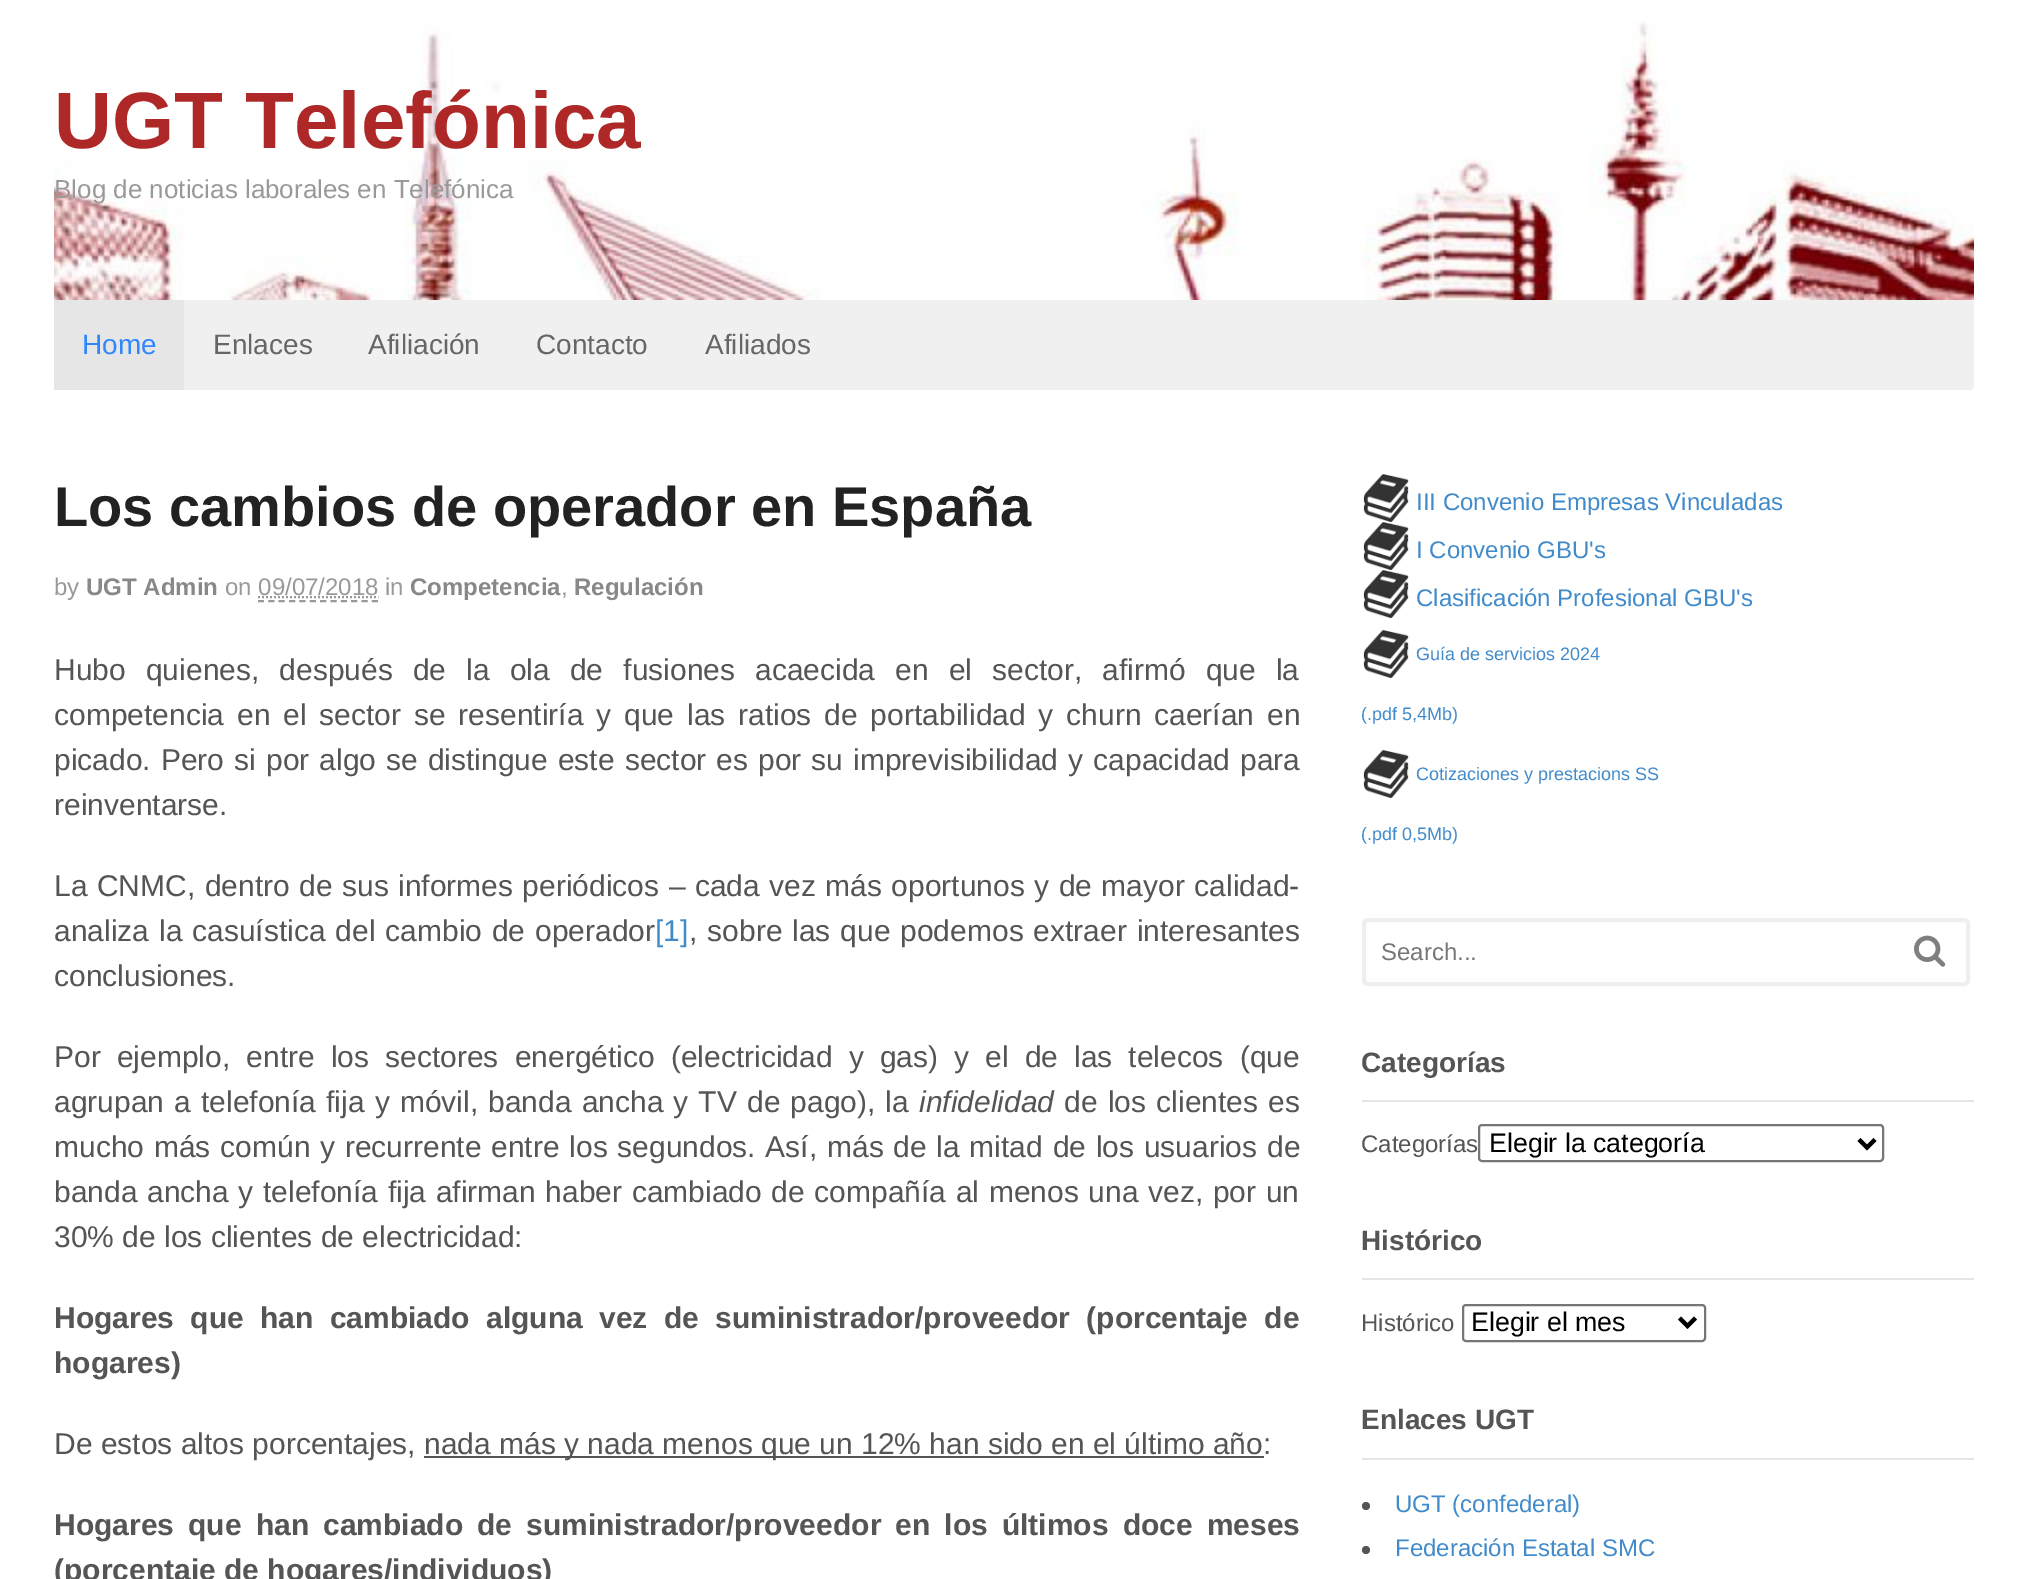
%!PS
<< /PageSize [2027 1579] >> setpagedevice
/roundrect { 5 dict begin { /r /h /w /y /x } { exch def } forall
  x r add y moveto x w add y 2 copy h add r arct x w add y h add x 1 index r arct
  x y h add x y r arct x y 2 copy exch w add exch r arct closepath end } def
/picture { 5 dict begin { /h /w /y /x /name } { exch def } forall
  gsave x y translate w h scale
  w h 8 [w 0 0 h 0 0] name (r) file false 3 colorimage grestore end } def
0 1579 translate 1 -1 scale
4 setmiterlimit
1 setgray
0 0 2027 1579 rectfill
(img1.rgb) 54 21 1920 279 picture
/LiberationSans-Bold [80 0 0 -80 0 0] selectfont
0.686 0.157 0.157 setrgbcolor
54 148 moveto (UGT Telefónica) show
/LiberationSans-Regular [26 0 0 -26 0 0] selectfont
0.6 setgray
54 198 moveto (Blog de noticias laborales en Telefónica) show
0.941 setgray
54 300 1920 90 4 roundrect fill
0.902 setgray
54 300 130 90 rectfill
/LiberationSans-Regular [28 0 0 -28 0 0] selectfont
0.188 0.533 1 setrgbcolor
82 354 moveto (Home) show
0.4 setgray
213 354 moveto (Enlaces) show
368 354 moveto (Afiliación) show
536 354 moveto (Contacto) show
705 354 moveto (Afiliados) show
/LiberationSans-Bold [56 0 0 -56 0 0] selectfont
0.133 setgray
54 526 moveto (Los cambios de operador en España) show
/LiberationSans-Regular [24 0 0 -24 0 0] selectfont
0.6 setgray
54 595 moveto (by) show
/LiberationSans-Bold [24 0 0 -24 0 0] selectfont
0.533 setgray
86 595 moveto (UGT Admin) show
/LiberationSans-Regular [24 0 0 -24 0 0] selectfont
0.6 setgray
225 595 moveto (on 09/07/2018 in) show
/LiberationSans-Bold [24 0 0 -24 0 0] selectfont
0.533 setgray
410 595 moveto (Competencia) show
/LiberationSans-Regular [24 0 0 -24 0 0] selectfont
0.6 setgray
561 595 moveto (,) show
/LiberationSans-Bold [24 0 0 -24 0 0] selectfont
0.533 setgray
574 595 moveto (Regulación) show
0.6 setgray
2 setlinewidth
[2 2] 0 setdash
newpath 258 597 moveto 378.5 597 lineto stroke
[6 4.36] 0 setdash
newpath 258 601 moveto 378 601 lineto stroke
/LiberationSans-Regular [30 0 0 -30 0 0] selectfont
0.333 setgray
54 680 moveto 11.75 0 32 (Hubo quienes, después de la ola de fusiones acaecida en el sector, afirmó que la) widthshow
54 725 moveto 4.5 0 32 (competencia en el sector se resentiría y que las ratios de portabilidad y churn caerían en) widthshow
54 770 moveto 1.7 0 32 (picado. Pero si por algo se distingue este sector es por su imprevisibilidad y capacidad para) widthshow
54 815 moveto (reinventarse.) show
54 896 moveto 1.1 0 32 (La CNMC, dentro de sus informes periódicos – cada vez más oportunos y de mayor calidad-) widthshow
54 941 moveto 1.5 0 32 (analiza la casuística del cambio de operador) widthshow
0.259 0.545 0.792 setrgbcolor
655 941 moveto ([1]) show
0.333 setgray
689 941 moveto 1.5 0 32 (, sobre las que podemos extraer interesantes) widthshow
54 986 moveto (conclusiones.) show
54 1067 moveto 7.75 0 32 (Por ejemplo, entre los sectores energético \(electricidad y gas\) y el de las telecos \(que) widthshow
54 1112 moveto 1.75 0 32 (agrupan a telefonía fija y móvil, banda ancha y TV de pago\), la) widthshow
/LiberationSans-Italic [30 0 0 -30 0 0] selectfont
919 1112 moveto (infidelidad) show
/LiberationSans-Regular [30 0 0 -30 0 0] selectfont
1064 1112 moveto 2 0 32 (de los clientes es) widthshow
54 1157 moveto 1.4 0 32 (mucho más común y recurrente entre los segundos. Así, más de la mitad de los usuarios de) widthshow
54 1202 moveto 1.3 0 32 (banda ancha y telefonía fija afirman haber cambiado de compañía al menos una vez, por un) widthshow
54 1247 moveto (30% de los clientes de electricidad:) show
/LiberationSans-Bold [30 0 0 -30 0 0] selectfont
54 1328 moveto 8 0 32 (Hogares que han cambiado alguna vez de suministrador/proveedor \(porcentaje de) widthshow
54 1373 moveto (hogares\)) show
/LiberationSans-Regular [30 0 0 -30 0 0] selectfont
54 1454 moveto (De estos altos porcentajes,) show
424 1456 840 2 rectfill
424 1454 moveto (nada más y nada menos que un 12% han sido en el último año:) show
/LiberationSans-Bold [30 0 0 -30 0 0] selectfont
54 1535 moveto 5.75 0 32 (Hogares que han cambiado de suministrador/proveedor en los últimos doce meses) widthshow
54 1580 moveto (\(porcentaje de hogares/individuos\)) show
(img2.rgb) 1363 474 46 48 picture
/LiberationSans-Regular [24 0 0 -24 0 0] selectfont
0.259 0.545 0.792 setrgbcolor
1416 510 moveto (III Convenio Empresas Vinculadas) show
(img2.rgb) 1363 522 46 48 picture
1416 558 moveto (I Convenio GBU's) show
(img2.rgb) 1363 570 46 48 picture
1416 606 moveto (Clasificación Profesional GBU's) show
(img2.rgb) 1363 630 46 48 picture
/LiberationSans-Regular [18 0 0 -18 0 0] selectfont
1416 660 moveto (Guía de servicios 2024) show
1361 720 moveto (\(.pdf 5,4Mb\)) show
(img2.rgb) 1363 750 46 48 picture
1416 780 moveto (Cotizaciones y prestacions SS) show
1361 840 moveto (\(.pdf 0,5Mb\)) show
0.937 setgray
4 setlinewidth
[] 0 setdash
1364 920 604 64 4 roundrect stroke
/LiberationSans-Regular [24 0 0 -24 0 0] selectfont
0.467 setgray
1381 960 moveto (Search...) show
(img3.rgb) 1914 935 32 32 picture
0.902 setgray
1362 1100 612 2 rectfill
/LiberationSans-Bold [28 0 0 -28 0 0] selectfont
0.333 setgray
1361 1072 moveto (Categorías) show
/LiberationSans-Regular [24 0 0 -24 0 0] selectfont
1361 1152 moveto (Categorías) show
0.463 setgray
2 setlinewidth
1479 1125 404 36 3 roundrect stroke
0 setgray
4 setlinewidth
newpath 1859 1139.5 moveto 1867 1147.5 lineto 1875 1139.5 lineto stroke
/LiberationSans-Regular [26.75 0 0 -26.75 0 0] selectfont
1489 1152 moveto (Elegir la categoría) show
0.902 setgray
1362 1278 612 2 rectfill
/LiberationSans-Bold [28 0 0 -28 0 0] selectfont
0.333 setgray
1361 1250 moveto (Histórico) show
/LiberationSans-Regular [24 0 0 -24 0 0] selectfont
1361 1331 moveto (Histórico) show
0.463 setgray
2 setlinewidth
1463 1305 242 36 3 roundrect stroke
0 setgray
4 setlinewidth
newpath 1679.5 1318 moveto 1687.5 1326 lineto 1695.5 1318 lineto stroke
/LiberationSans-Regular [26.75 0 0 -26.75 0 0] selectfont
1471 1331 moveto (Elegir el mes) show
0.902 setgray
1362 1458 612 2 rectfill
/LiberationSans-Bold [28 0 0 -28 0 0] selectfont
0.333 setgray
1361 1429 moveto (Enlaces UGT) show
newpath 1366 1506 4 0 360 arc closepath fill
/LiberationSans-Regular [24 0 0 -24 0 0] selectfont
0.259 0.545 0.792 setrgbcolor
1395 1512 moveto (UGT \(confederal\)) show
0.333 setgray
newpath 1366 1550 4 0 360 arc closepath fill
0.259 0.545 0.792 setrgbcolor
1395 1556 moveto (Federación Estatal SMC) show
showpage
